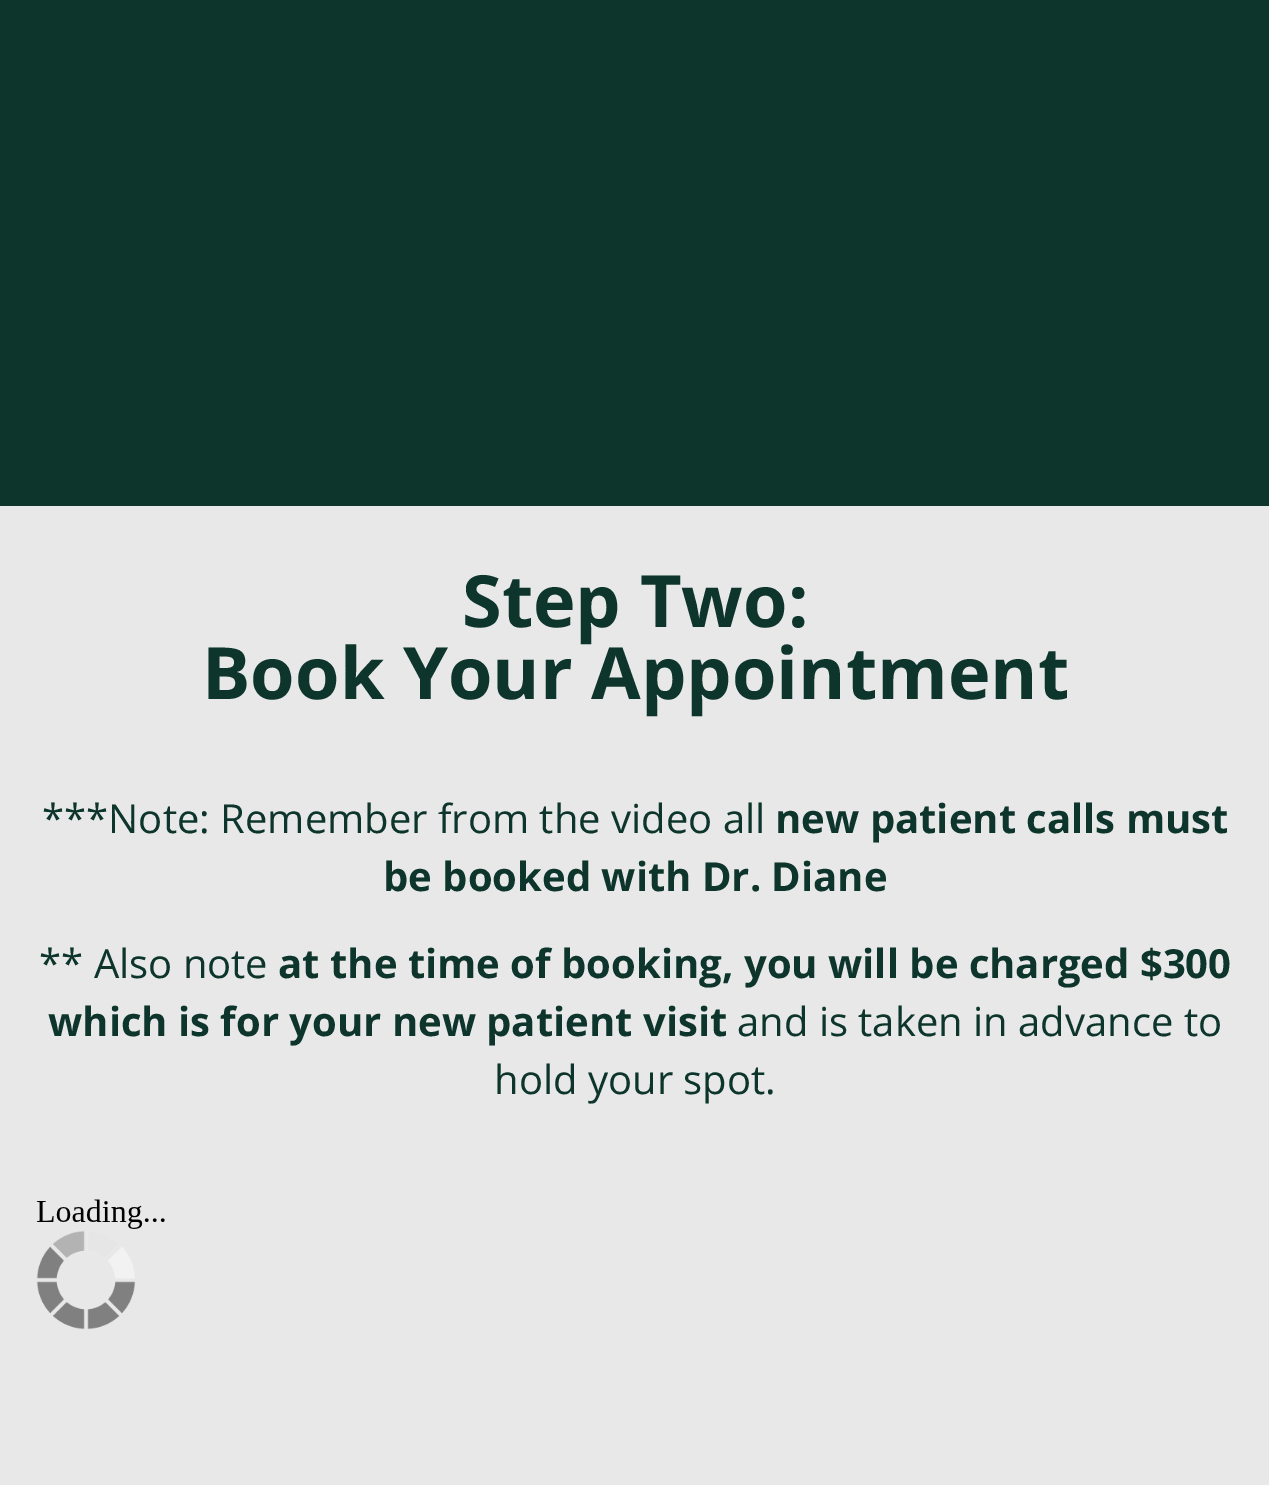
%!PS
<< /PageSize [1269 1485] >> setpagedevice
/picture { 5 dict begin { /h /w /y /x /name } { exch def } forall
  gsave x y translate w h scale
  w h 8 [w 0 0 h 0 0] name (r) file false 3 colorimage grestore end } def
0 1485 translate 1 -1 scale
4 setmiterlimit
0.051 0.208 0.173 setrgbcolor
0 0 1269 1485 rectfill
0.91 setgray
0 506 1269 979 rectfill
/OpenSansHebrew-Bold [72 0 0 -72 0 0] selectfont
0.051 0.208 0.173 setrgbcolor
462 627 moveto (Step Two:) show
202 699 moveto (Book Your Appointment) show
/OpenSansHebrew-Regular [40 0 0 -40 0 0] selectfont
42 833 moveto (***Note: Remember from the video all) show
/OpenSansHebrew-Bold [40 0 0 -40 0 0] selectfont
775 833 moveto (new patient calls must) show
383 891 moveto (be booked with Dr. Diane) show
/OpenSansHebrew-Regular [40 0 0 -40 0 0] selectfont
39 978 moveto (** Also note) show
/OpenSansHebrew-Bold [40 0 0 -40 0 0] selectfont
278 978 moveto (at the time of booking, you will be charged $300) show
48 1036 moveto (which is for your new patient visit) show
/OpenSansHebrew-Regular [40 0 0 -40 0 0] selectfont
737 1036 moveto (and is taken in advance to) show
494 1094 moveto (hold your spot.) show
(img1.rgb) 36 1199 129 131 picture
showpage
